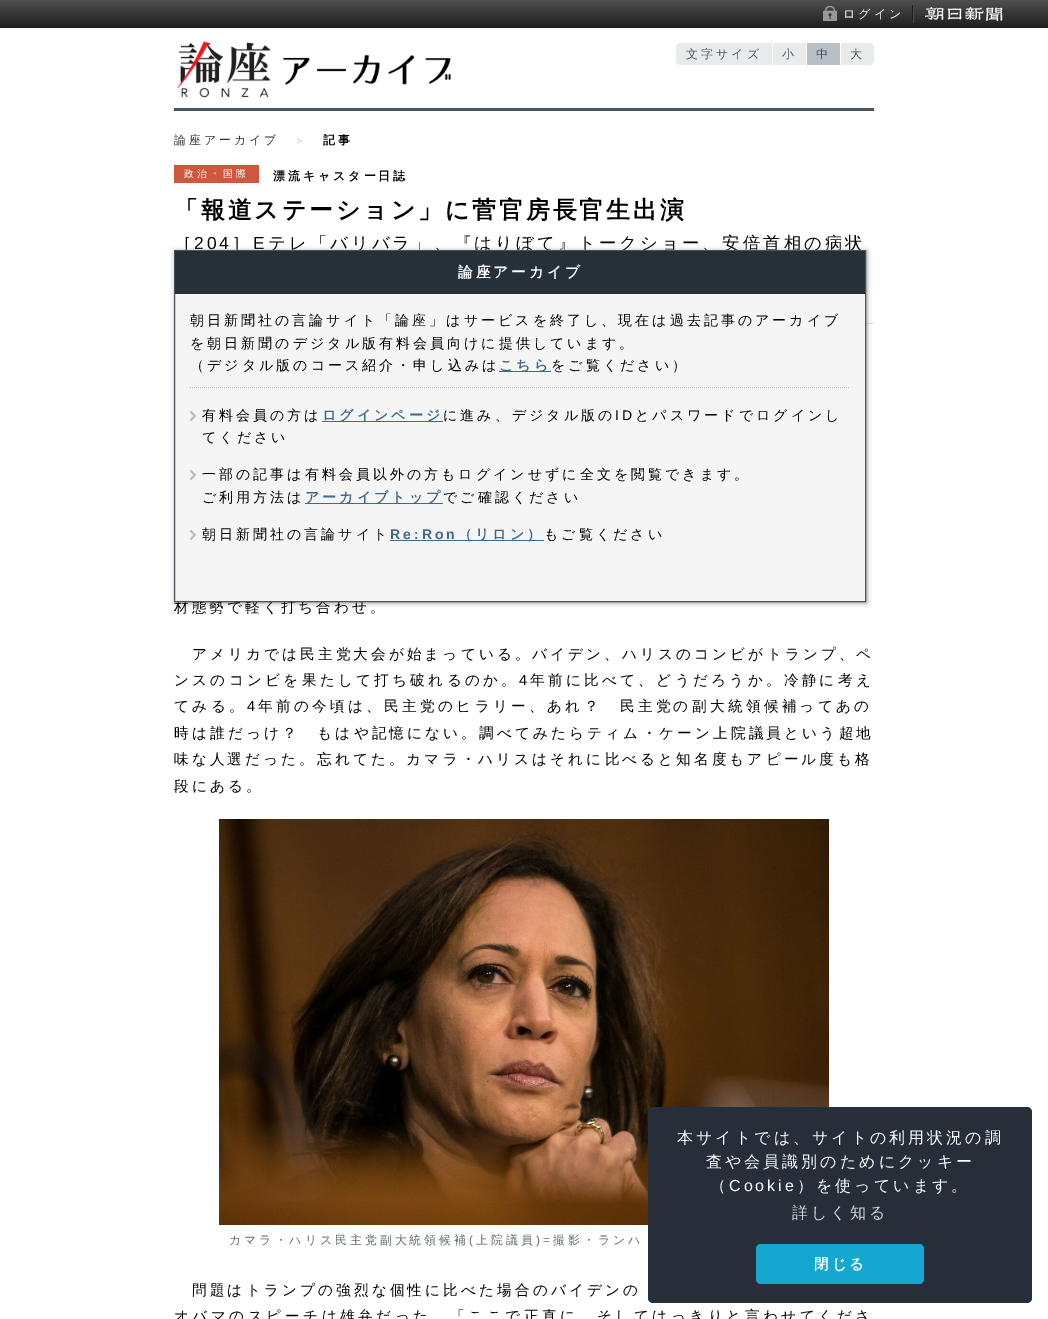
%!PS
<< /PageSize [1048 1319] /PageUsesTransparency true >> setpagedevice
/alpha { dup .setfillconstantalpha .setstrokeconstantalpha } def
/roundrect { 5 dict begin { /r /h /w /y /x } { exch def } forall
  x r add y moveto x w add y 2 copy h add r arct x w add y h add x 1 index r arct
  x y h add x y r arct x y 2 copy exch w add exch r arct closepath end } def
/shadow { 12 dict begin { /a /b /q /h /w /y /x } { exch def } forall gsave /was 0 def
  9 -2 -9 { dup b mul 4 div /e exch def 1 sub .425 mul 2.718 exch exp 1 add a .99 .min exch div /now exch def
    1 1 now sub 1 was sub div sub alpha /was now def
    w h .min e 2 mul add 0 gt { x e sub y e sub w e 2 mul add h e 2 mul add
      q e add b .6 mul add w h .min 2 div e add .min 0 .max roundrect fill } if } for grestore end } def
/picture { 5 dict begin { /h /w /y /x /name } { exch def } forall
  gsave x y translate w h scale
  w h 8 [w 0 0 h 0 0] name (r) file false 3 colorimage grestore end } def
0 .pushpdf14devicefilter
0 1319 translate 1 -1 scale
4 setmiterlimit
1 setgray
0 0 1048 1319 rectfill
0.118 setgray
0 25 1048 3 rectfill
(img1.rgb) 0 0 1048 25 picture
(img2.rgb) 912 5 2 18 picture
(img3.rgb) 823 6 14 15 picture
/WenQuanYiZenHei-Medium [12 0 0 -12 0 0] selectfont
1 setgray
843 18 moveto 3 0 (ログイン) ashow
(img4.rgb) 925 7 78 14 picture
0.294 0.333 0.373 setrgbcolor
174 108 700 3 rectfill
(img5.rgb) 177 41 274 57 picture
0.914 0.918 0.922 setrgbcolor
newpath 681 43 moveto 772 43 lineto 772 65 lineto 681 65 lineto 678 65 676 63 676 60 curveto 676 48 lineto 676 45 678 43 681 43 curveto closepath fill
0.294 0.333 0.373 setrgbcolor
686 58 moveto 3 0 (文字サイズ) ashow
0.914 0.918 0.922 setrgbcolor
773 43 33 22 rectfill
0.294 0.333 0.373 setrgbcolor
782 58 moveto 3 0 (小) ashow
0.729 0.745 0.773 setrgbcolor
807 43 33 22 rectfill
0.294 0.333 0.373 setrgbcolor
816 58 moveto 3 0 (中) ashow
0.914 0.918 0.922 setrgbcolor
newpath 840 43 moveto 869 43 lineto 872 43 874 45 874 48 curveto 874 60 lineto 874 63 872 65 869 65 curveto 840 65 lineto closepath fill
1 setgray
840 43 1 22 rectfill
0.294 0.333 0.373 setrgbcolor
850 58 moveto 3 0 (大) ashow
/WenQuanYiZenHei-Medium [11.9 0 0 -11.9 0 0] selectfont
0.2 setgray
174 144 moveto 3 0 (論座アーカイブ) ashow
/WenQuanYiZenHei-Medium [11 0 0 -11 0 0] selectfont
0.729 0.749 0.773 setrgbcolor
294 144 moveto 3 0 (＞) ashow
/WenQuanYiZenHei-Bold [11.9 0 0 -11.9 0 0] selectfont
0 setgray
323 144 moveto 3 0 (記事) ashow
0.847 0.855 0.863 setrgbcolor
866 323 8 1 rectfill
0.808 0.341 0.243 setrgbcolor
174 165 85 18 rectfill
/WenQuanYiZenHei-Medium [10 0 0 -10 0 0] selectfont
1 setgray
184 177 moveto 3 0 (政治・国際) ashow
/WenQuanYiZenHei-Bold [11.9 0 0 -11.9 0 0] selectfont
0 setgray
273 180 moveto 3 0 (漂流キャスター日誌) ashow
/WenQuanYiZenHei-Bold [23.8 0 0 -23.8 0 0] selectfont
174 218 moveto 3 0 (「報道ステーション」に菅官房長官生出演) ashow
/WenQuanYiZenHei-Medium [17.4 0 0 -17.4 0 0] selectfont
174 249 moveto 3 0 (［) ashow
/LiberationSans-Regular [17.4 0 0 -17.4 0 0] selectfont
194 249 moveto 3 0 (204) ashow
/WenQuanYiZenHei-Medium [17.4 0 0 -17.4 0 0] selectfont
232 249 moveto 3 0 (］) ashow
/LiberationSans-Regular [17.4 0 0 -17.4 0 0] selectfont
253 249 moveto 3 0 (E) ashow
/WenQuanYiZenHei-Medium [17.4 0 0 -17.4 0 0] selectfont
268 249 moveto 3 0 (テレ「バリバラ」、『はりぼて』トークショー、安倍首相の病状) ashow
0.6 setgray
175 251 692 352 0 2.5 1 shadow
/WenQuanYiZenHei-Medium [14.65 0 0 -14.65 0 0] selectfont
0 setgray
174 612 moveto 3 0 (材態勢で軽く打ち合わせ。) ashow
0.961 setgray
175 294 690 307 rectfill
0.294 0.333 0.373 setrgbcolor
174.5 250.5 691 351 rectstroke
0.149 0.188 0.224 setrgbcolor
175 251 690 43 rectfill
/WenQuanYiZenHei-Bold [14.65 0 0 -14.65 0 0] selectfont
1 setgray
458 277 moveto 3 0 (論座アーカイブ) ashow
/WenQuanYiZenHei-Medium [14 0 0 -14 0 0] selectfont
0 setgray
190 325 moveto 3 0 (朝日新聞社の言論サイト「論座」はサービスを終了し、現在は過去記事のアーカイブ) ashow
190 348 moveto 3 0 (を朝日新聞のデジタル版有料会員向けに提供しています。) ashow
190 370 moveto 3 0 (（デジタル版のコース紹介・申し込みは) ashow
0.275 0.404 0.549 setrgbcolor
499 371 52 1 rectfill
/WenQuanYiZenHei-Bold [14 0 0 -14 0 0] selectfont
499 370 moveto 3 0 (こちら) ashow
/WenQuanYiZenHei-Medium [14 0 0 -14 0 0] selectfont
0 setgray
551 370 moveto 3 0 (をご覧ください）) ashow
0.729 0.749 0.773 setrgbcolor
[1 1] 0 setdash
newpath 190 387.5 moveto 850 387.5 lineto stroke
(img6.rgb) 190 411 6 10 picture
0 setgray
202 420 moveto 3 0 (有料会員の方は) ashow
0.275 0.404 0.549 setrgbcolor
322 421 121 1 rectfill
/WenQuanYiZenHei-Bold [14 0 0 -14 0 0] selectfont
322 420 moveto 3 0 (ログインページ) ashow
/WenQuanYiZenHei-Medium [14 0 0 -14 0 0] selectfont
0 setgray
443 420 moveto 3 0 (に進み、デジタル版の) ashow
/LiberationSans-Regular [14 0 0 -14 0 0] selectfont
615 420 moveto 3 0 (ID) ashow
/WenQuanYiZenHei-Medium [14 0 0 -14 0 0] selectfont
635 420 moveto 3 0 (とパスワードでログインし) ashow
202 442 moveto 3 0 (てください) ashow
(img6.rgb) 190 470 6 10 picture
202 479 moveto 3 0 (一部の記事は有料会員以外の方もログインせずに全文を閲覧できます。) ashow
202 502 moveto 3 0 (ご利用方法は) ashow
0.275 0.404 0.549 setrgbcolor
305 503 138 1 rectfill
/WenQuanYiZenHei-Bold [14 0 0 -14 0 0] selectfont
305 502 moveto 3 0 (アーカイブトップ) ashow
/WenQuanYiZenHei-Medium [14 0 0 -14 0 0] selectfont
0 setgray
443 502 moveto 3 0 (でご確認ください) ashow
(img6.rgb) 190 530 6 10 picture
202 539 moveto 3 0 (朝日新聞社の言論サイト) ashow
/LiberationSans-Bold [14 0 0 -14 0 0] selectfont
0.275 0.404 0.549 setrgbcolor
390 539 moveto 3 0 (Re:Ron) ashow
390 540 154 1 rectfill
/WenQuanYiZenHei-Bold [14 0 0 -14 0 0] selectfont
458 539 moveto 3 0 (（リロン）) ashow
/WenQuanYiZenHei-Medium [14 0 0 -14 0 0] selectfont
0 setgray
544 539 moveto 3 0 (もご覧ください) ashow
/WenQuanYiZenHei-Medium [14.65 0 0 -14.65 0 0] selectfont
192 659 moveto 3.05 0 (アメリカでは民主党大会が始まっている。バイデン、ハリスのコンビがトランプ、ペ) ashow
174 685 moveto 3.25 0 (ンスのコンビを果たして打ち破れるのか。) ashow
/LiberationSans-Regular [14.65 0 0 -14.65 0 0] selectfont
519 685 moveto 3.25 0 (4) ashow
/WenQuanYiZenHei-Medium [14.65 0 0 -14.65 0 0] selectfont
530 685 moveto 3.25 0 (年前に比べて、どうだろうか。冷静に考え) ashow
174 711 moveto 3.3 0 (てみる。) ashow
/LiberationSans-Regular [14.65 0 0 -14.65 0 0] selectfont
247 711 moveto 3.3 0 (4) ashow
/WenQuanYiZenHei-Medium [14.65 0 0 -14.65 0 0] selectfont
258 711 moveto 3.3 0 (年前の今頃は、民主党のヒラリー、あれ？　民主党の副大統領候補ってあの) ashow
174 738 moveto 3.1 0 (時は誰だっけ？　もはや記憶にない。調べてみたらティム・ケーン上院議員という超地) ashow
174 764 moveto 3.05 0 (味な人選だった。忘れてた。カマラ・ハリスはそれに比べると知名度もアピール度も格) ashow
174 791 moveto 3 0 (段にある。) ashow
(img7.rgb) 219 819 610 406 picture
/WenQuanYiZenHei-Medium [11.9 0 0 -11.9 0 0] selectfont
0.376 0.4 0.416 setrgbcolor
229 1244 moveto 3 0 (カマラ・ハリス民主党副大統領候補) ashow
/LiberationSans-Regular [11.9 0 0 -11.9 0 0] selectfont
469 1244 moveto 3 0 (\() ashow
/WenQuanYiZenHei-Medium [11.9 0 0 -11.9 0 0] selectfont
476 1244 moveto 3 0 (上院議員) ashow
/LiberationSans-Regular [11.9 0 0 -11.9 0 0] selectfont
536 1244 moveto 3 0 (\)=) ashow
/WenQuanYiZenHei-Medium [11.9 0 0 -11.9 0 0] selectfont
553 1244 moveto 3 0 (撮影・ランハ) ashow
/WenQuanYiZenHei-Medium [14.65 0 0 -14.65 0 0] selectfont
0 setgray
192 1295 moveto 3.1 0 (問題はトランプの強烈な個性に比べた場合のバイデンの) ashow
174 1321 moveto 3.5 0 (オバマのスピーチは雄弁だった。「ここで正直に、そしてはっきりと言わせてくださ) ashow
0.145 0.18 0.224 setrgbcolor
648 1107 384 196 5 roundrect fill
/WenQuanYiZenHei-Medium [16 0 0 -16 0 0] selectfont
1 setgray
677 1143 moveto 3 0 (本サイトでは、サイトの利用状況の調) ashow
706 1167 moveto 3 0 (査や会員識別のためにクッキー) ashow
710 1191 moveto 3 0 (（) ashow
/LiberationSans-Regular [16 0 0 -16 0 0] selectfont
729 1191 moveto 3 0 (Cookie) ashow
/WenQuanYiZenHei-Medium [16 0 0 -16 0 0] selectfont
797 1191 moveto 3 0 (）を使っています。) ashow
0.827 0.835 0.843 setrgbcolor
792 1218 moveto 3 0 (詳しく知る) ashow
0.078 0.655 0.816 setrgbcolor
756 1244 168 40 5 roundrect fill
/WenQuanYiZenHei-Bold [14.5 0 0 -14.5 0 0] selectfont
1 setgray
814 1269 moveto 3 0 (閉じる) ashow
.poppdf14devicefilter showpage
